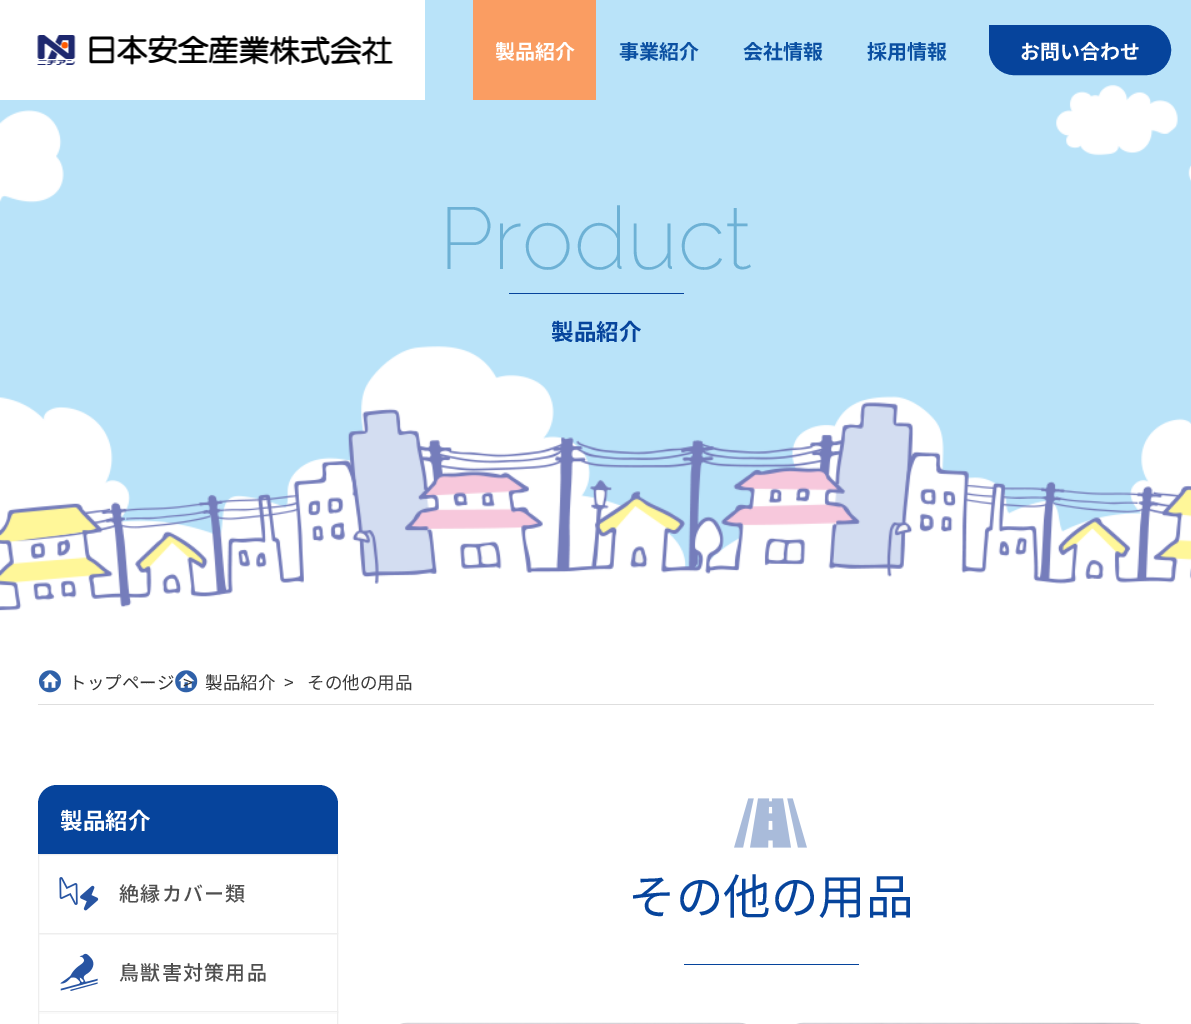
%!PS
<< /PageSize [1191 1024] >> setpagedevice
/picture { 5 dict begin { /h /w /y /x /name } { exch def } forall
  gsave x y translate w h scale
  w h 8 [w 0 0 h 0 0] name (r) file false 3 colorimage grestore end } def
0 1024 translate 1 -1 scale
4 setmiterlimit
1 setgray
0 0 1191 1024 rectfill
(img1.rgb) 0 0 1191 611 picture
0 0 425 100 rectfill
(img2.rgb) 37 35 356 30 picture
0.98 0.616 0.384 setrgbcolor
473 0 123 100 rectfill
/NotoSansJP-Bold [20 0 0 -20 0 0] selectfont
1 setgray
495 59 moveto (製品紹介) show
0.043 0.314 0.635 setrgbcolor
619 59 moveto (事業紹介) show
743 59 moveto (会社情報) show
867 59 moveto (採用情報) show
0.024 0.267 0.612 setrgbcolor
newpath 989.5 25.5 moveto 1146 25.5 lineto 1159.5 25.5 1170.5 36.5 1170.5 50 curveto 1170.5 63.5 1159.5 74.5 1146 74.5 curveto 1014 74.5 lineto 1000.5 74.5 989.5 63.5 989.5 50 curveto closepath gsave fill grestore
stroke
1 setgray
1020 59 moveto (お問い合わせ) show
/Raleway-ExtraLight [87.5 0 0 -87.5 0 0] selectfont
0.427 0.694 0.835 setrgbcolor
439 269 moveto (Product) show
0.024 0.267 0.612 setrgbcolor
509 293 175 1 rectfill
/NotoSansJP-Bold [22.5 0 0 -22.5 0 0] selectfont
551 340 moveto (製品紹介) show
0.871 setgray
38 704 1116 1 rectfill
(img3.rgb) 38 670 160 23 picture
/NotoSansJP-Regular [17.5 0 0 -17.5 0 0] selectfont
0.2 setgray
69 689 moveto (トップページ) show
183 689 moveto (>) show
205 689 moveto (製品紹介) show
284 689 moveto (>) show
0.224 setgray
307 689 moveto (その他の用品) show
0.024 0.267 0.612 setrgbcolor
newpath 57 785 moveto 319 785 lineto 329.5 785 338 793.5 338 804 curveto 338 855 lineto 38 855 lineto 38 804 lineto 38 793.5 46.5 785 57 785 curveto closepath fill
/NotoSansJP-Bold [22.5 0 0 -22.5 0 0] selectfont
1 setgray
60 829 moveto (製品紹介) show
0.933 setgray
38.5 854.5 299 79 rectstroke
(img4.rgb) 59 877 40 34 picture
/NotoSansJP-Medium [20 0 0 -20 0 0] selectfont
0.31 setgray
119 901 moveto 1.25 0 (絶縁カバー類) ashow
0.933 setgray
38.5 933.5 299 79 rectstroke
(img5.rgb) 60 953 38 38 picture
0.31 setgray
119 980 moveto 1.25 0 (鳥獣害対策用品) ashow
1 setgray
39 1012 298 1 rectfill
0.933 setgray
38.5 1011.5 299 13 rectstroke
(img6.rgb) 734 798 73 50 picture
/NotoSansJP-Regular [47.5 0 0 -47.5 0 0] selectfont
0.024 0.267 0.612 setrgbcolor
628 914 moveto (その他の用品) show
684 964 175 1 rectfill
(img7.rgb) 400 1022 346 2 picture
(img8.rgb) 796 1022 345 2 picture
showpage
